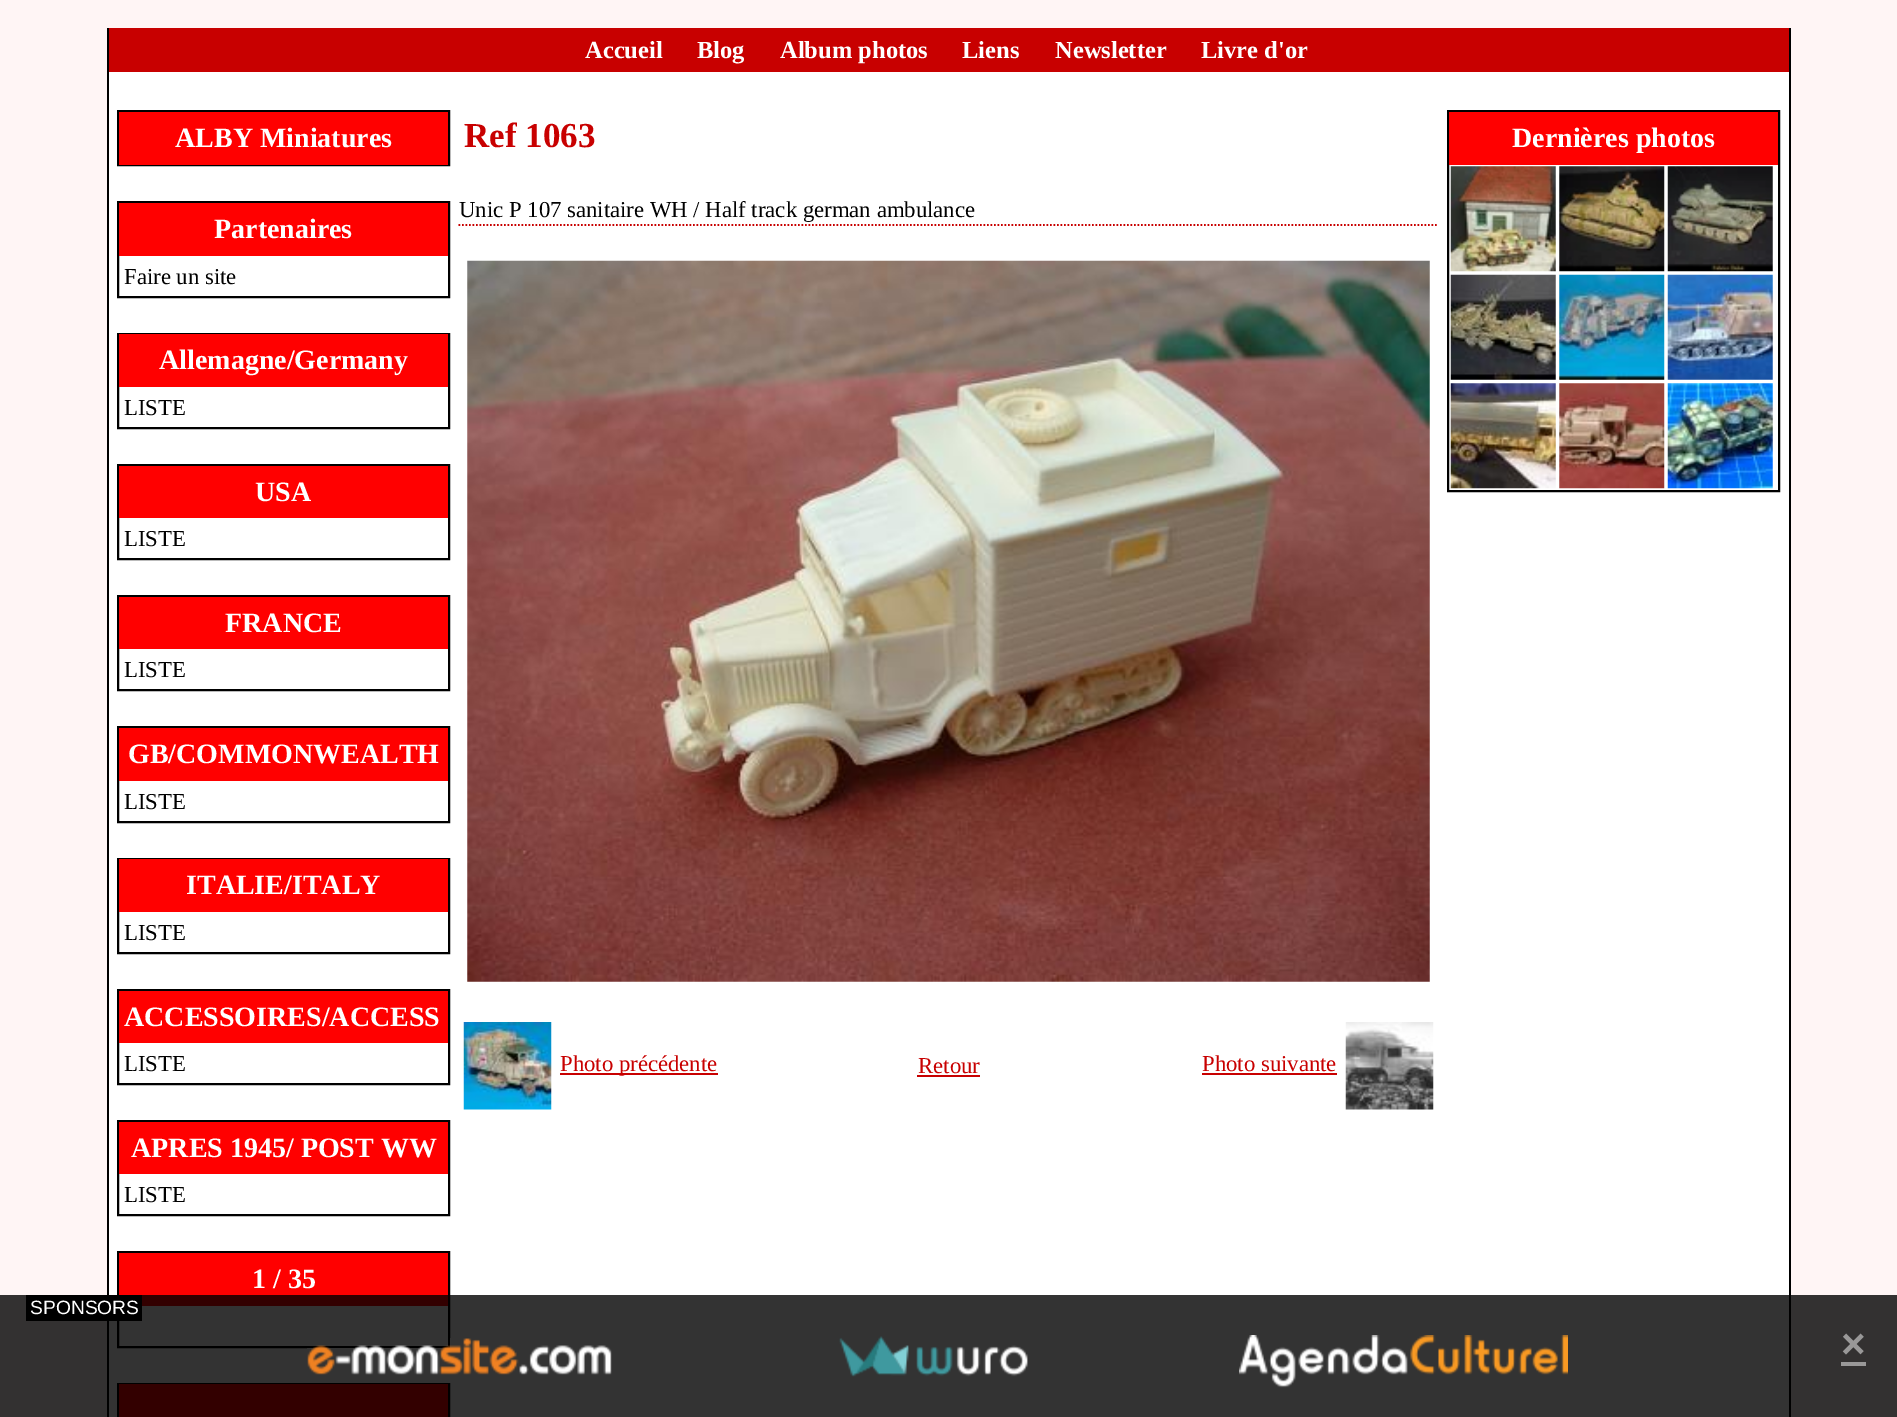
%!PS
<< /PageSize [1897 1417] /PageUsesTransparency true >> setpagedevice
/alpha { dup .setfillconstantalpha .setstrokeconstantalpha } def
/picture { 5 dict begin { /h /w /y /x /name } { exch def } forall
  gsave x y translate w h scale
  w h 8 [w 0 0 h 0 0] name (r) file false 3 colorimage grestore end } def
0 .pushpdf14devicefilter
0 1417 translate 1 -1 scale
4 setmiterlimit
1 0.961 0.961 setrgbcolor
0 0 1897 1417 rectfill
1 setgray
109 72 1680 1345 rectfill
0 setgray
1789 28 2 1389 rectfill
107 28 2 1389 rectfill
0.784 0 0 setrgbcolor
109 28 1680 44 rectfill
/LiberationSerif-Bold [24.5 0 0 -24.5 0 0] selectfont
1 setgray
585 58 moveto (Accueil) show
697 58 moveto (Blog) show
780 58 moveto (Album photos) show
962 58 moveto (Liens) show
1055 58 moveto (Newsletter) show
1201 58 moveto (Livre d'or) show
0 setgray
2 setlinewidth
118 111 331 54 rectstroke
1 0 0 setrgbcolor
119 112 329 53 rectfill
/LiberationSerif-Bold [28 0 0 -28 0 0] selectfont
1 setgray
175 147 moveto (ALBY Miniatures) show
0 setgray
118 202 331 95 rectstroke
1 0 0 setrgbcolor
119 203 329 53 rectfill
1 setgray
214 238 moveto (Partenaires) show
/LiberationSerif-Regular [22.75 0 0 -22.75 0 0] selectfont
0 setgray
124 284 moveto (Faire un site) show
118 334 331 94 rectstroke
1 0 0 setrgbcolor
119 334 329 53 rectfill
/LiberationSerif-Bold [28 0 0 -28 0 0] selectfont
1 setgray
159 369 moveto (Allemagne/Germany) show
/LiberationSerif-Regular [22.75 0 0 -22.75 0 0] selectfont
0 setgray
124 415 moveto (LISTE) show
118 465 331 94 rectstroke
1 0 0 setrgbcolor
119 466 329 52 rectfill
/LiberationSerif-Bold [28 0 0 -28 0 0] selectfont
1 setgray
255 501 moveto (USA) show
/LiberationSerif-Regular [22.75 0 0 -22.75 0 0] selectfont
0 setgray
124 546 moveto (LISTE) show
118 596 331 94 rectstroke
1 0 0 setrgbcolor
119 597 329 52 rectfill
/LiberationSerif-Bold [28 0 0 -28 0 0] selectfont
1 setgray
225 632 moveto (FRANCE) show
/LiberationSerif-Regular [22.75 0 0 -22.75 0 0] selectfont
0 setgray
124 677 moveto (LISTE) show
118 727 331 95 rectstroke
1 0 0 setrgbcolor
119 728 329 53 rectfill
/LiberationSerif-Bold [28 0 0 -28 0 0] selectfont
1 setgray
128 763 moveto (GB/COMMONWEALTH) show
/LiberationSerif-Regular [22.75 0 0 -22.75 0 0] selectfont
0 setgray
124 809 moveto (LISTE) show
118 859 331 94 rectstroke
1 0 0 setrgbcolor
119 859 329 53 rectfill
/LiberationSerif-Bold [28 0 0 -28 0 0] selectfont
1 setgray
186 894 moveto (ITALIE/ITALY) show
/LiberationSerif-Regular [22.75 0 0 -22.75 0 0] selectfont
0 setgray
124 940 moveto (LISTE) show
118 990 331 94 rectstroke
1 0 0 setrgbcolor
119 991 329 52 rectfill
/LiberationSerif-Bold [28 0 0 -28 0 0] selectfont
1 setgray
124 1026 moveto (ACCESSOIRES/ACCESS) show
/LiberationSerif-Regular [22.75 0 0 -22.75 0 0] selectfont
0 setgray
124 1071 moveto (LISTE) show
118 1121 331 94 rectstroke
1 0 0 setrgbcolor
119 1122 329 52 rectfill
/LiberationSerif-Bold [28 0 0 -28 0 0] selectfont
1 setgray
131 1157 moveto (APRES 1945/ POST WW) show
/LiberationSerif-Regular [22.75 0 0 -22.75 0 0] selectfont
0 setgray
124 1202 moveto (LISTE) show
118 1252 331 95 rectstroke
1 0 0 setrgbcolor
119 1253 329 53 rectfill
/LiberationSerif-Bold [28 0 0 -28 0 0] selectfont
1 setgray
252 1288 moveto (1 / 35) show
0 setgray
118 1384 331 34 rectstroke
1 0 0 setrgbcolor
119 1384 329 33 rectfill
/LiberationSerif-Bold [35 0 0 -35 0 0] selectfont
0.784 0 0 setrgbcolor
464 147 moveto (Ref 1063) show
1.8 setlinewidth
[1.75 1.75] 0 setdash
newpath 458.5 225 moveto 1438.5 225 lineto stroke
/LiberationSerif-Regular [22.75 0 0 -22.75 0 0] selectfont
0 setgray
459 217 moveto (Unic P 107 sanitaire WH / Half track german ambulance) show
(img1.rgb) 467 260 963 722 picture
(img2.rgb) 463 1022 89 88 picture
0.784 0 0 setrgbcolor
560 1073 158 2 rectfill
560 1071 moveto (Photo précédente) show
918 1073 moveto (Retour) show
917 1075 63 2 rectfill
1202 1071 moveto (Photo suivante) show
1202 1073 135 2 rectfill
(img3.rgb) 1345 1022 89 88 picture
0 setgray
2 setlinewidth
[] 0 setdash
1448 111 331 380 rectstroke
1 0 0 setrgbcolor
1449 112 329 53 rectfill
/LiberationSerif-Bold [28 0 0 -28 0 0] selectfont
1 setgray
1512 147 moveto (Dernières photos) show
(img4.rgb) 1450 166 106 106 picture
(img5.rgb) 1559 166 106 106 picture
(img6.rgb) 1667 166 106 106 picture
(img7.rgb) 1450 274 106 106 picture
(img8.rgb) 1559 274 106 106 picture
(img9.rgb) 1667 274 106 106 picture
(img10.rgb) 1450 383 106 106 picture
(img11.rgb) 1559 383 106 106 picture
(img12.rgb) 1667 383 106 106 picture
0.8 alpha
0 setgray
0 1295 1897 122 rectfill
1 alpha
26 1295 116 26 rectfill
/LiberationSans-Regular [19.25 0 0 -19.25 0 0] selectfont
1 setgray
30 1314 moveto (SPONSORS) show
(img13.rgb) 307 1338 305 37 picture
(img14.rgb) 839 1336 189 41 picture
(img15.rgb) 1239 1335 329 53 picture
/LiberationSans-Bold [42 0 0 -42 0 0] selectfont
0.6 0.596 0.596 setrgbcolor
1841 1358 moveto (×) show
1841 1362 25 4 rectfill
.poppdf14devicefilter showpage
